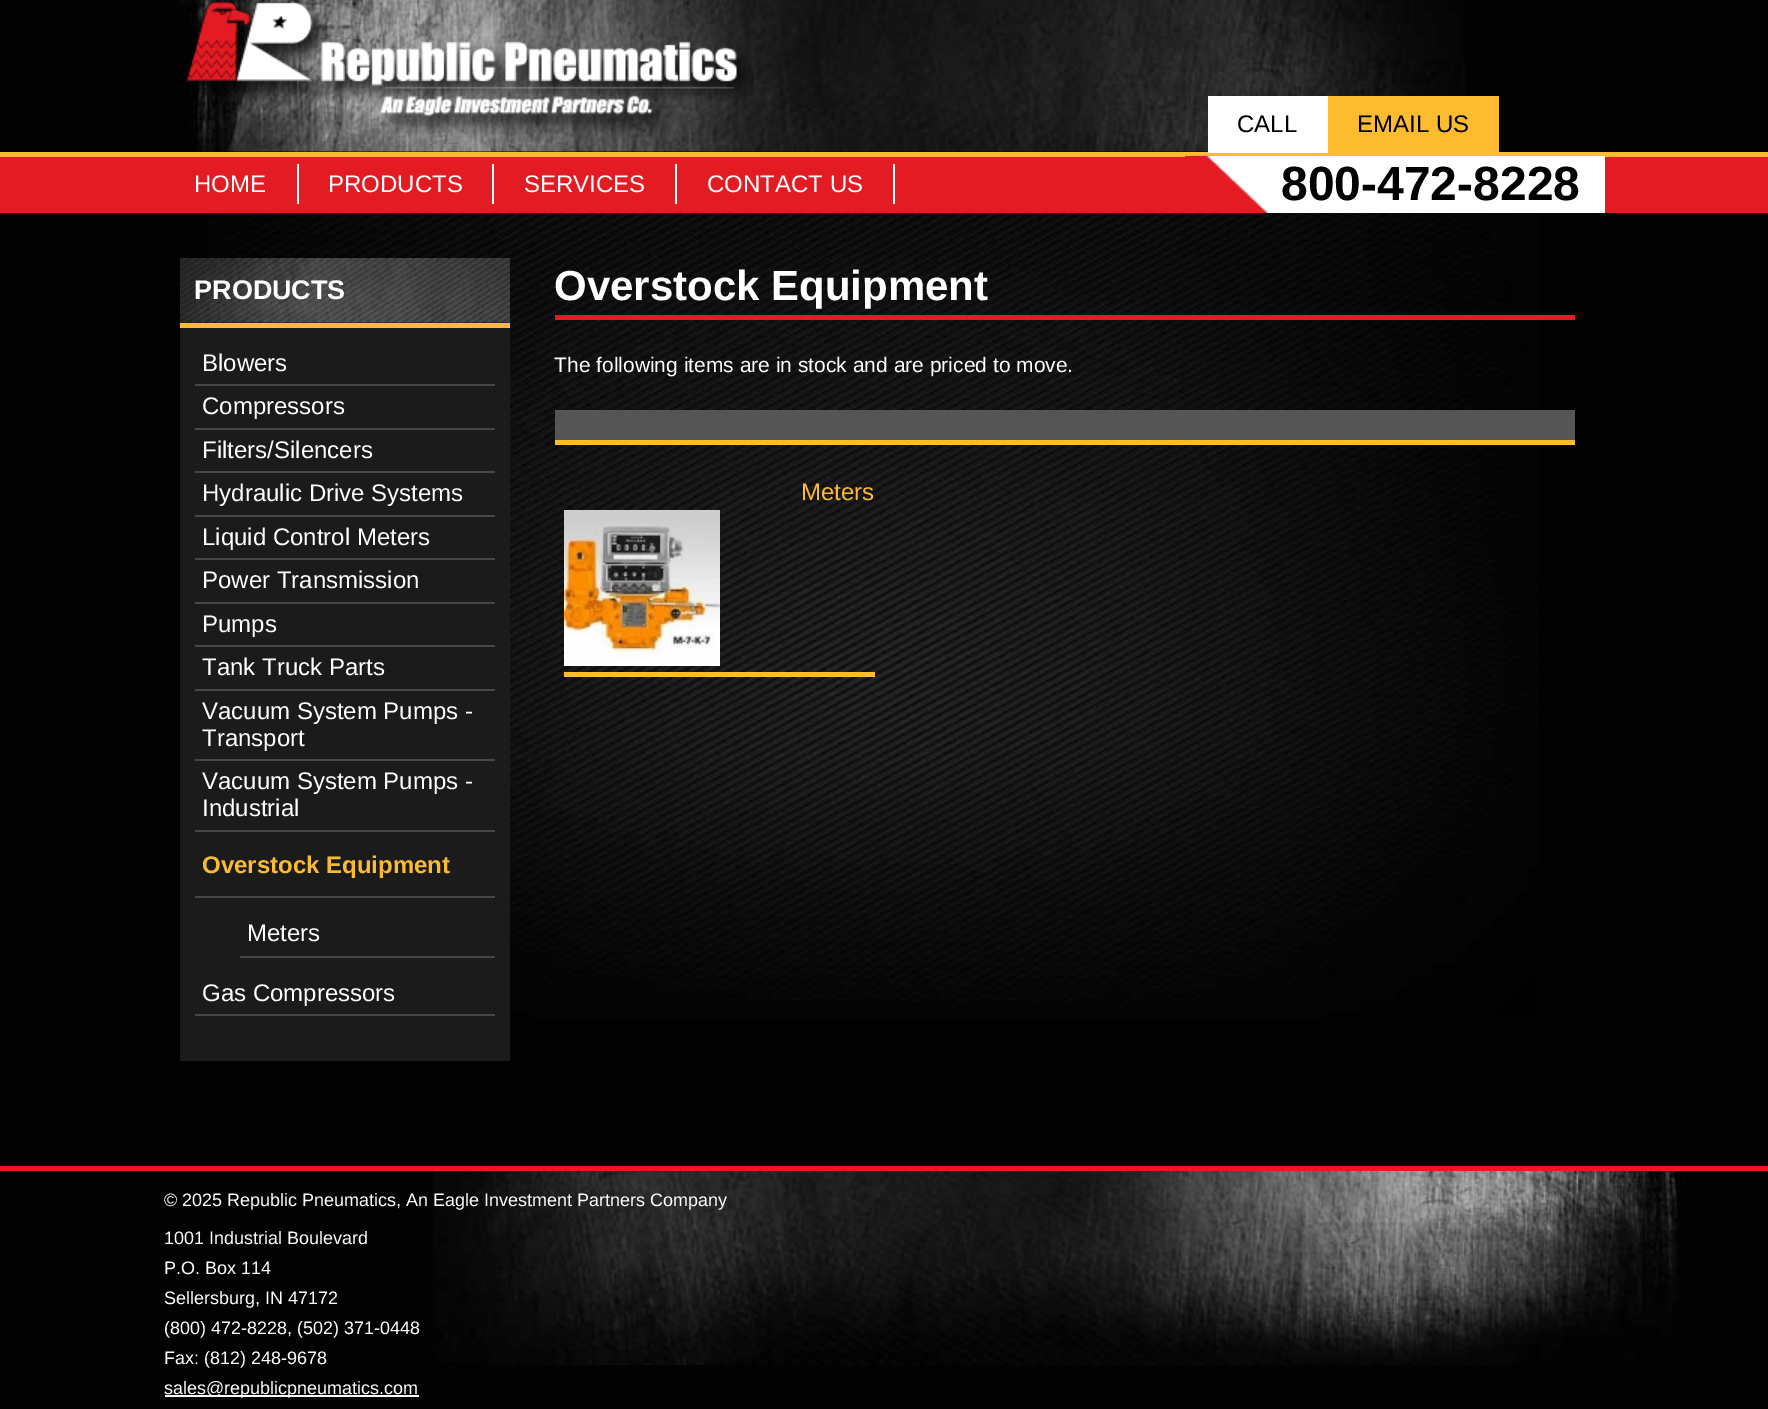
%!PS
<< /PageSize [1768 1409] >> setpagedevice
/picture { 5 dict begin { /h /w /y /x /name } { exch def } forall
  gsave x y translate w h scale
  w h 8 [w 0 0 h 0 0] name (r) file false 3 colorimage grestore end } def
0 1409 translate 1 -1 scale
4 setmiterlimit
0.008 setgray
0 0 1768 1409 rectfill
(img1.rgb) 208 213 1330 806 picture
(img2.rgb) 178 0 1287 152 picture
(img4.rgb) 228 0 265 152 picture
(img3.rgb) 185 0 569 138 picture
0.89 0.106 0.137 setrgbcolor
0 157 1768 56 rectfill
0.992 0.733 0.188 setrgbcolor
0 152 1768 5 rectfill
/LiberationSans-Regular [24 0 0 -24 0 0] selectfont
1 setgray
194 192 moveto (HOME) show
297 164 2 40 rectfill
328 192 moveto (PRODUCTS) show
492 164 2 40 rectfill
524 192 moveto (SERVICES) show
675 164 2 40 rectfill
707 192 moveto (CONTACT US) show
893 164 2 40 rectfill
1268 156 337 57 rectfill
(img5.rgb) 1185 156 83 57 picture
1208 96 120 57 rectfill
0 setgray
1237 132 moveto (CALL) show
0.992 0.733 0.188 setrgbcolor
1328 96 171 56 rectfill
0 setgray
1357 132 moveto (EMAIL US) show
/LiberationSans-Bold [48 0 0 -48 0 0] selectfont
1281 200 moveto (800-472-8228) show
0.106 setgray
180 322 330 739 rectfill
(img6.rgb) 180 258 330 65 picture
0.992 0.733 0.188 setrgbcolor
180 323 330 5 rectfill
/LiberationSans-Bold [27 0 0 -27 0 0] selectfont
1 setgray
194 299 moveto (PRODUCTS) show
0.275 0.278 0.275 setrgbcolor
195 384 300 2 rectfill
/LiberationSans-Regular [24 0 0 -24 0 0] selectfont
1 setgray
202 371 moveto (Blowers) show
0.275 0.278 0.275 setrgbcolor
195 428 300 2 rectfill
1 setgray
202 414 moveto (Compressors) show
0.275 0.278 0.275 setrgbcolor
195 471 300 2 rectfill
1 setgray
202 458 moveto (Filters/Silencers) show
0.275 0.278 0.275 setrgbcolor
195 515 300 2 rectfill
1 setgray
202 501 moveto (Hydraulic Drive Systems) show
0.275 0.278 0.275 setrgbcolor
195 558 300 2 rectfill
1 setgray
202 545 moveto (Liquid Control Meters) show
0.275 0.278 0.275 setrgbcolor
195 602 300 2 rectfill
1 setgray
202 588 moveto (Power Transmission) show
0.275 0.278 0.275 setrgbcolor
195 645 300 2 rectfill
1 setgray
202 632 moveto (Pumps) show
0.275 0.278 0.275 setrgbcolor
195 689 300 2 rectfill
1 setgray
202 675 moveto (Tank Truck Parts) show
0.275 0.278 0.275 setrgbcolor
195 759 300 2 rectfill
1 setgray
202 719 moveto (Vacuum System Pumps -) show
202 746 moveto (Transport) show
0.275 0.278 0.275 setrgbcolor
195 830 300 2 rectfill
1 setgray
202 789 moveto (Vacuum System Pumps -) show
202 816 moveto (Industrial) show
0.275 0.278 0.275 setrgbcolor
195 896 300 2 rectfill
/LiberationSans-Bold [24 0 0 -24 0 0] selectfont
0.992 0.733 0.188 setrgbcolor
202 873 moveto (Overstock Equipment) show
0.275 0.278 0.275 setrgbcolor
240 956 255 2 rectfill
/LiberationSans-Regular [24 0 0 -24 0 0] selectfont
1 setgray
247 941 moveto (Meters) show
0.275 0.278 0.275 setrgbcolor
195 1014 300 2 rectfill
1 setgray
202 1001 moveto (Gas Compressors) show
0.89 0.106 0.137 setrgbcolor
555 315 1020 5 rectfill
/LiberationSans-Bold [42 0 0 -42 0 0] selectfont
1 setgray
554 300 moveto (Overstock Equipment) show
/LiberationSans-Regular [21 0 0 -21 0 0] selectfont
554 372 moveto (The following items are in stock and are priced to move.) show
0.333 setgray
555 410 1020 30 rectfill
0.992 0.733 0.188 setrgbcolor
555 440 1020 5 rectfill
564 672 311 5 rectfill
/LiberationSans-Regular [24 0 0 -24 0 0] selectfont
801 500 moveto (Meters) show
(img7.rgb) 564 510 156 156 picture
(img8.rgb) 433 1171 1251 194 picture
0.89 0.106 0.137 setrgbcolor
0 1166 1768 5 rectfill
/LiberationSans-Regular [18 0 0 -18 0 0] selectfont
1 setgray
164 1206 moveto (© 2025 Republic Pneumatics, An Eagle Investment Partners Company) show
164 1244 moveto (1001 Industrial Boulevard) show
164 1274 moveto (P.O. Box 114) show
164 1304 moveto (Sellersburg, IN 47172) show
164 1334 moveto (\(800\) 472-8228, \(502\) 371-0448) show
164 1364 moveto (Fax: \(812\) 248-9678) show
165 1395 254 2 rectfill
164 1394 moveto (sales@republicpneumatics.com) show
showpage
